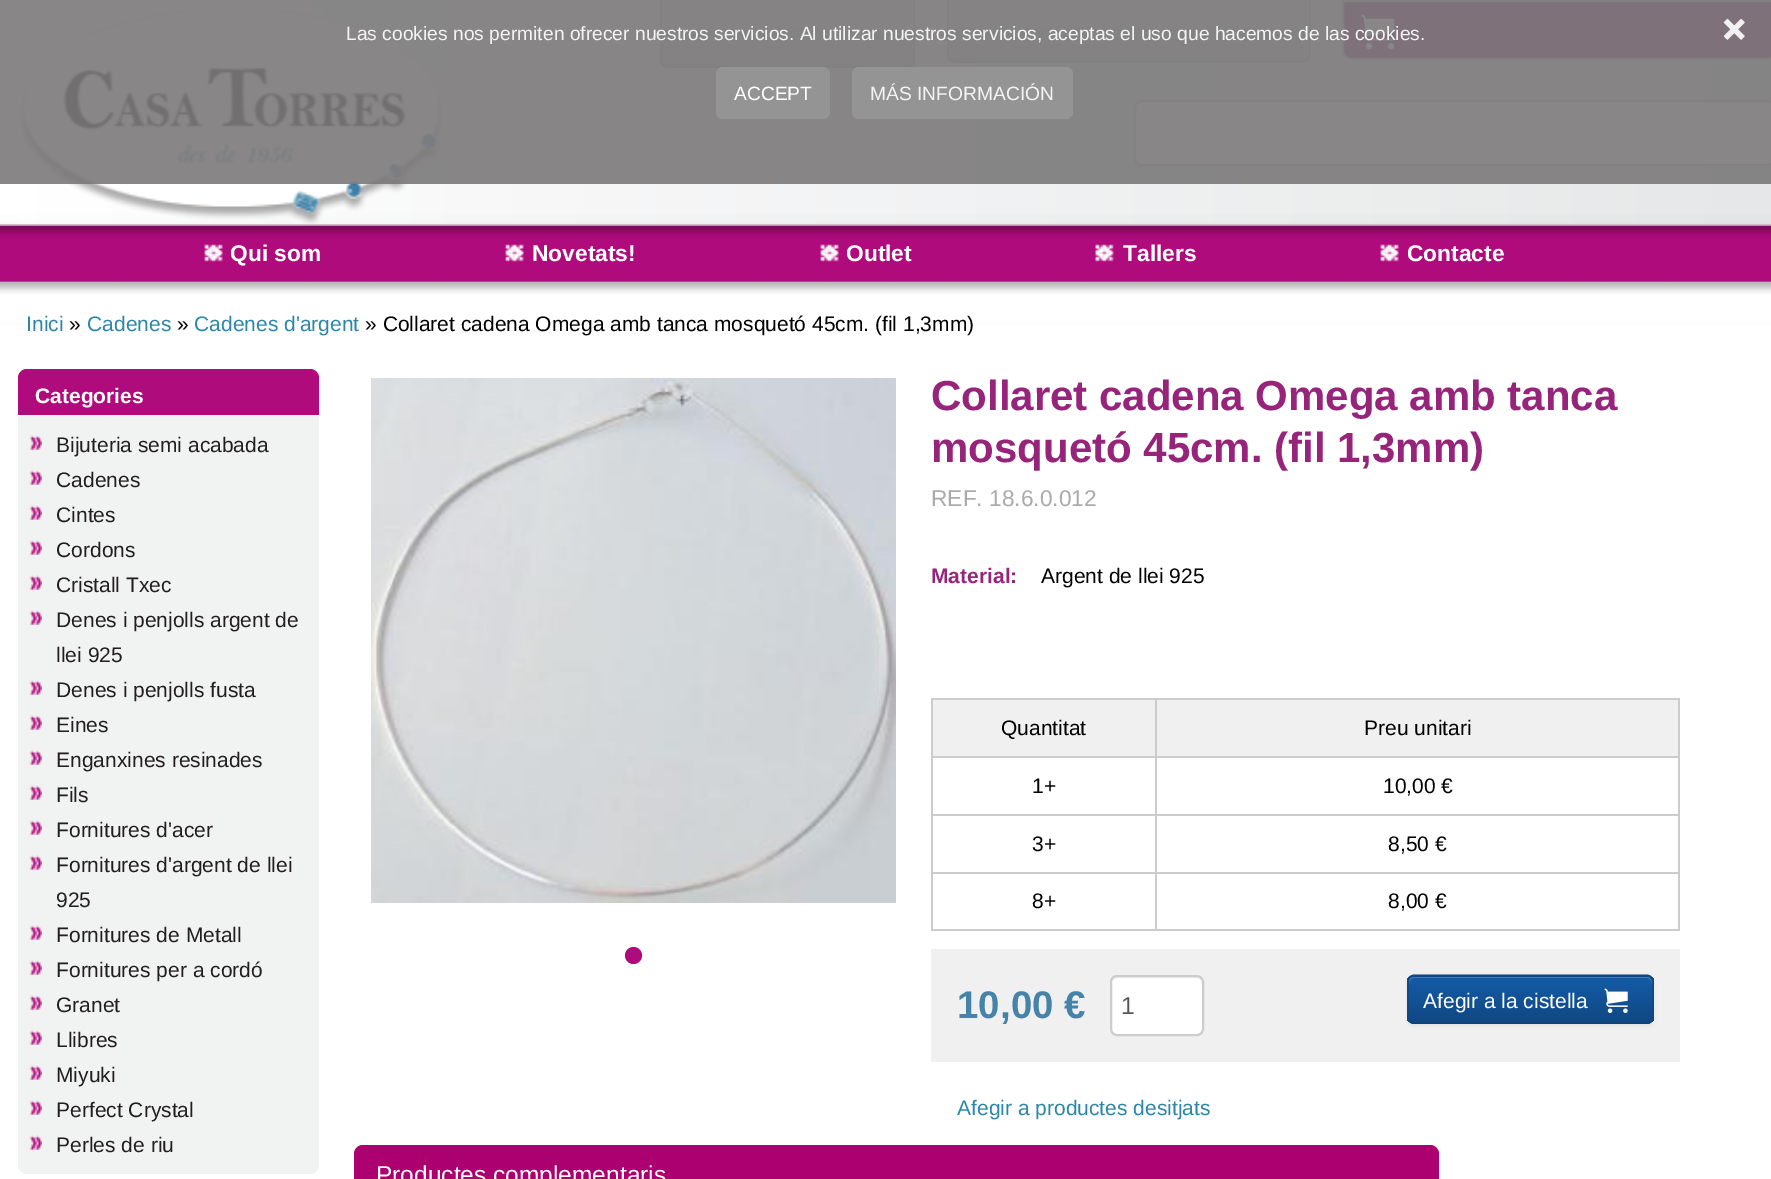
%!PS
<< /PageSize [1771 1179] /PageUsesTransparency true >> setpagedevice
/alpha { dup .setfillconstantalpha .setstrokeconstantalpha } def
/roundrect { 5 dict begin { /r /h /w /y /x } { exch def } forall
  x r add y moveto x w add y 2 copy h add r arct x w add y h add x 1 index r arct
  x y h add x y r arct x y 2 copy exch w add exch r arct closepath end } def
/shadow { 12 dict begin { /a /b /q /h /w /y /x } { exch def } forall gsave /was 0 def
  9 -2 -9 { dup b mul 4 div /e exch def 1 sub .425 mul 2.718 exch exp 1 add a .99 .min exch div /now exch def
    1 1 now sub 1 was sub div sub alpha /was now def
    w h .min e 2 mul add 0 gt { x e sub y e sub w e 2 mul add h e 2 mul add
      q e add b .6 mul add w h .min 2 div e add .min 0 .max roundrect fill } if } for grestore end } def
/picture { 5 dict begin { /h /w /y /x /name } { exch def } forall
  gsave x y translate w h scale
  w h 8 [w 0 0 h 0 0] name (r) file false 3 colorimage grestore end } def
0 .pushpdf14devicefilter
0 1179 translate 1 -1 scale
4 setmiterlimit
1 setgray
0 0 1771 1179 rectfill
(img1.rgb) 17 281 1753 1 picture
gsave newpath 179 0 moveto 1771 0 lineto 1771 224 lineto 179 224 lineto closepath clip newpath
<< /ShadingType 2 /ColorSpace /DeviceRGB /Coords [0 112 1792 112] /Extend [true true] /Function << /FunctionType 2 /Domain [0 1] /C0 [1 1 1] /C1 [0.902 0.906 0.91] /N 1 >> >> shfill grestore
0.859 0.741 0.82 setrgbcolor
0 224 1771 2 rectfill
0.196 setgray
0 242 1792 56 0 12 0.35 shadow
(img2.rgb) 19 9 424 216 picture
gsave
newpath 660 0 moveto 915 0 lineto 915 59 lineto 915 64 911 68 906 68 curveto 669 68 lineto 664 68 660 64 660 59 curveto closepath clip newpath
gsave newpath 660 0 moveto 915 0 lineto 915 67 lineto 660 67 lineto closepath clip newpath
<< /ShadingType 2 /ColorSpace /DeviceRGB /Coords [788 0 788 67] /Extend [true true] /Function << /FunctionType 3 /Domain [0 1] /Functions [<< /FunctionType 2 /Domain [0 1] /C0 [0.898 0.898 0.898] /C1 [0.898 0.898 0.898] /N 1 >> << /FunctionType 2 /Domain [0 1] /C0 [0.898 0.898 0.898] /C1 [0.82 0.827 0.831] /N 1 >>] /Bounds [0.01] /Encode [0 1 0 1] >> >> shfill grestore
grestore
0.776 0.78 0.788 setrgbcolor
newpath 660 0 moveto 915 0 lineto 915 60 lineto 915 64 911 68 906 68 curveto 668 68 lineto 664 68 660 64 660 60 curveto closepath 662 0 moveto 914 0 lineto 914 60 lineto 914 63 910 66 906 66 curveto 668 66 lineto 665 66 662 63 662 60 curveto closepath eofill
gsave
newpath 947 0 moveto 1311 0 lineto 1311 54 lineto 1311 59 1307 63 1302 63 curveto 956 63 lineto 951 63 947 59 947 54 curveto closepath clip newpath
gsave newpath 947 0 moveto 1311 0 lineto 1311 61 lineto 947 61 lineto closepath clip newpath
<< /ShadingType 2 /ColorSpace /DeviceRGB /Coords [1129 0 1129 61] /Extend [true true] /Function << /FunctionType 3 /Domain [0 1] /Functions [<< /FunctionType 2 /Domain [0 1] /C0 [0.898 0.898 0.898] /C1 [0.898 0.898 0.898] /N 1 >> << /FunctionType 2 /Domain [0 1] /C0 [0.898 0.898 0.898] /C1 [0.82 0.827 0.831] /N 1 >>] /Bounds [0.01] /Encode [0 1 0 1] >> >> shfill grestore
grestore
newpath 947 0 moveto 1311 0 lineto 1311 54 lineto 1311 59 1307 63 1302 63 curveto 956 63 lineto 951 63 947 59 947 54 curveto closepath 948 0 moveto 1309 0 lineto 1309 54 lineto 1309 58 1306 61 1302 61 curveto 956 61 lineto 952 61 948 58 948 54 curveto closepath eofill
0.588 0.141 0.482 setrgbcolor
newpath 1343 1 moveto 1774 1 lineto 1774 51 lineto 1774 55.5 1770.5 59 1766 59 curveto 1351 59 lineto 1346.5 59 1343 55.5 1343 51 curveto closepath gsave fill grestore
0.776 0.78 0.788 setrgbcolor
2 setlinewidth
stroke
(img3.rgb) 1361 14 34 36 picture
1 setgray
1134 100 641 66 7 roundrect fill
0.925 setgray
newpath 1141 103 moveto 1768 103 lineto 1770 103 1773 106 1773 108 curveto 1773 105 1771 102 1768 102 curveto 1141 102 lineto 1138 102 1136 105 1136 108 curveto 1136 106 1138 103 1141 103 curveto closepath fill
0.8 setgray
1135 101 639 64 6 roundrect stroke
0.9 alpha
0.482 0.475 0.478 setrgbcolor
0 0 1771 184 rectfill
/LiberationSans-Regular [19.25 0 0 -19.25 0 0] selectfont
1 alpha
0.953 setgray
346 40 moveto (Las cookies nos permiten ofrecer nuestros servicios. Al utilizar nuestros servicios, aceptas el uso que hacemos de las cookies.) show
(img4.rgb) 1723 18 22 22 picture
0.9 alpha
0.588 setgray
716 67 114 52 7 roundrect fill
1 alpha
1 setgray
734 100 moveto (ACCEPT) show
0.9 alpha
0.588 setgray
852 67 221 52 7 roundrect fill
1 alpha
0.953 setgray
870 100 moveto (MÁS INFORMACIÓN) show
(img5.rgb) 0 225 1771 57 picture
(img6.rgb) 204 244 19 18 picture
/LiberationSans-Bold [22.75 0 0 -22.75 0 0] selectfont
1 setgray
230 261 moveto (Qui som) show
(img6.rgb) 505 244 19 18 picture
532 261 moveto (Novetats!) show
(img6.rgb) 820 244 19 18 picture
846 261 moveto (Outlet) show
(img7.rgb) 1095 244 19 18 picture
1123 261 moveto (Tallers) show
(img6.rgb) 1380 244 19 18 picture
1407 261 moveto (Contacte) show
0 294 1771 26 rectfill
(img8.rgb) 0 281 1771 13 picture
/LiberationSans-Regular [21 0 0 -21 0 0] selectfont
0.173 0.525 0.667 setrgbcolor
26 331 moveto (Inici) show
0 setgray
69 331 moveto (») show
0.173 0.525 0.667 setrgbcolor
87 331 moveto (Cadenes) show
0 setgray
177 331 moveto (») show
0.173 0.525 0.667 setrgbcolor
194 331 moveto (Cadenes d'argent) show
0 setgray
365 331 moveto (» Collaret cadena Omega amb tanca mosquetó 45cm. \(fil 1,3mm\)) show
0.69 0.043 0.49 setrgbcolor
newpath 27 369 moveto 310 369 lineto 315 369 319 373 319 378 curveto 319 415 lineto 18 415 lineto 18 378 lineto 18 373 22 369 27 369 curveto closepath fill
/LiberationSans-Bold [21 0 0 -21 0 0] selectfont
1 setgray
35 403 moveto (Categories) show
0.945 0.949 0.949 setrgbcolor
newpath 18 415 moveto 319 415 lineto 319 1165 lineto 319 1170 315 1174 310 1174 curveto 27 1174 lineto 22 1174 18 1170 18 1165 curveto closepath fill
(img9.rgb) 29 435 13 15 picture
/LiberationSans-Regular [21 0 0 -21 0 0] selectfont
0.137 0.122 0.125 setrgbcolor
56 452 moveto (Bijuteria semi acabada) show
(img9.rgb) 29 470 13 15 picture
56 487 moveto (Cadenes) show
(img9.rgb) 29 505 13 15 picture
56 522 moveto (Cintes) show
(img9.rgb) 29 540 13 15 picture
56 557 moveto (Cordons) show
(img9.rgb) 29 575 13 15 picture
56 592 moveto (Cristall Txec) show
(img9.rgb) 29 610 13 15 picture
56 627 moveto (Denes i penjolls argent de) show
56 662 moveto (llei 925) show
(img9.rgb) 29 680 13 15 picture
56 697 moveto (Denes i penjolls fusta) show
(img9.rgb) 29 715 13 15 picture
56 732 moveto (Eines) show
(img9.rgb) 29 750 13 15 picture
56 767 moveto (Enganxines resinades) show
(img9.rgb) 29 785 13 15 picture
56 802 moveto (Fils) show
(img9.rgb) 29 820 13 15 picture
56 837 moveto (Fornitures d'acer) show
(img9.rgb) 29 855 13 15 picture
56 872 moveto (Fornitures d'argent de llei) show
56 907 moveto (925) show
(img9.rgb) 29 925 13 15 picture
56 942 moveto (Fornitures de Metall) show
(img9.rgb) 29 960 13 15 picture
56 977 moveto (Fornitures per a cordó) show
(img9.rgb) 29 995 13 15 picture
56 1012 moveto (Granet) show
(img9.rgb) 29 1030 13 15 picture
56 1047 moveto (Llibres) show
(img9.rgb) 29 1065 13 15 picture
56 1082 moveto (Miyuki) show
(img9.rgb) 29 1100 13 15 picture
56 1117 moveto (Perfect Crystal) show
(img9.rgb) 29 1135 13 15 picture
56 1152 moveto (Perles de riu) show
(img10.rgb) 371 378 525 525 picture
0.69 0.043 0.49 setrgbcolor
newpath 633.5 955.5 8.5 0 360 arc closepath fill
/LiberationSans-Bold [42 0 0 -42 0 0] selectfont
0.588 0.141 0.482 setrgbcolor
931 410 moveto (Collaret cadena Omega amb tanca) show
931 462 moveto (mosquetó 45cm. \(fil 1,3mm\)) show
/LiberationSans-Regular [22.75 0 0 -22.75 0 0] selectfont
0.667 setgray
931 506 moveto (REF. 18.6.0.012) show
/LiberationSans-Bold [21 0 0 -21 0 0] selectfont
0.588 0.141 0.482 setrgbcolor
931 583 moveto (Material:) show
/LiberationSans-Regular [21 0 0 -21 0 0] selectfont
0 setgray
1041 583 moveto (Argent de llei 925) show
0.8 setgray
931 698 749 2 rectfill
1678 698 2 233 rectfill
931 929 749 2 rectfill
931 698 2 233 rectfill
0.941 setgray
933 700 222 56 rectfill
0 setgray
1001 735 moveto (Quantitat) show
0.941 setgray
1157 700 521 56 rectfill
0.8 setgray
1155 756 525 2 rectfill
1155 814 525 2 rectfill
1155 872 525 2 rectfill
1155 872 2 59 rectfill
931 872 226 2 rectfill
1155 814 2 59 rectfill
931 814 226 2 rectfill
1155 756 2 60 rectfill
931 756 226 2 rectfill
1155 698 2 60 rectfill
0 setgray
1364 735 moveto (Preu unitari) show
1032 793 moveto (1+) show
1383 793 moveto (10,00 €) show
1032 851 moveto (3+) show
1388 851 moveto (8,50 €) show
1032 908 moveto (8+) show
1388 908 moveto (8,00 €) show
0.941 setgray
931 949 749 113 rectfill
/LiberationSans-Bold [38.5 0 0 -38.5 0 0] selectfont
0.271 0.514 0.659 setrgbcolor
957 1018 moveto (10,00 €) show
1 setgray
1110 975 94 61 7 roundrect fill
0.925 setgray
newpath 1116 978 moveto 1197 978 lineto 1200 978 1202 981 1202 984 curveto 1202 973 1192 977 1184 977 curveto 1130 977 lineto 1121 977 1111 973 1111 984 curveto 1111 981 1114 978 1116 978 curveto closepath fill
0.8 setgray
1111 976 92 59 6 roundrect stroke
/LiberationSans-Regular [24.5 0 0 -24.5 0 0] selectfont
0.333 setgray
1121 1014 moveto (1) show
0 setgray
1407 977 247 49 7 2 0.05 shadow
0.063 0.282 0.518 setrgbcolor
1407 975 247 49 7 roundrect fill
gsave
1407 975 247 49 7 roundrect clip newpath
gsave newpath 1407 977 moveto 1654 977 lineto 1654 1022 lineto 1407 1022 lineto closepath clip newpath
<< /ShadingType 2 /ColorSpace /DeviceRGB /Coords [1530 977 1530 1022] /Extend [true true] /Function << /FunctionType 2 /Domain [0 1] /C0 [0.078 0.357 0.655] /C1 [0.063 0.282 0.514] /N 1 >> >> shfill grestore
grestore
0.2 alpha
1 setgray
newpath 1414 978 moveto 1647 978 lineto 1650 978 1652 981 1652 984 curveto 1652 981 1652 978 1648 977 curveto 1413 977 lineto 1409 978 1409 981 1409 984 curveto 1409 981 1411 978 1414 978 curveto closepath fill
1 alpha
0.059 0.263 0.482 setrgbcolor
1.8 setlinewidth
newpath 1651 1021 moveto 1650 1022 1648.5 1023 1647 1023 curveto 1414 1023 lineto 1412.5 1023 1411 1022 1409.5 1021 curveto stroke
0.063 0.282 0.514 setrgbcolor
newpath 1409.5 1021 moveto 1408.5 1020 1408 1018.5 1408 1017 curveto 1408 982 lineto 1408 980 1408.5 978.5 1409.5 977.5 curveto 1411 976.5 1412.5 975.5 1414 975.5 curveto 1647 975.5 lineto 1648.5 975.5 1650 976.5 1651 977.5 curveto 1652 978.5 1653 980 1653 982 curveto 1653 1017 lineto 1653 1018.5 1652 1020 1651 1021 curveto stroke
/LiberationSans-Regular [21 0 0 -21 0 0] selectfont
1 setgray
1423 1008 moveto (Afegir a la cistella) show
(img11.rgb) 1604 988 24 25 picture
0.173 0.525 0.667 setrgbcolor
957 1115 moveto (Afegir a productes desitjats) show
0.678 0 0.439 setrgbcolor
354 1145 1085 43 9 roundrect fill
/LiberationSans-Regular [24.5 0 0 -24.5 0 0] selectfont
1 setgray
376 1183 moveto (Productes complementaris) show
.poppdf14devicefilter showpage
